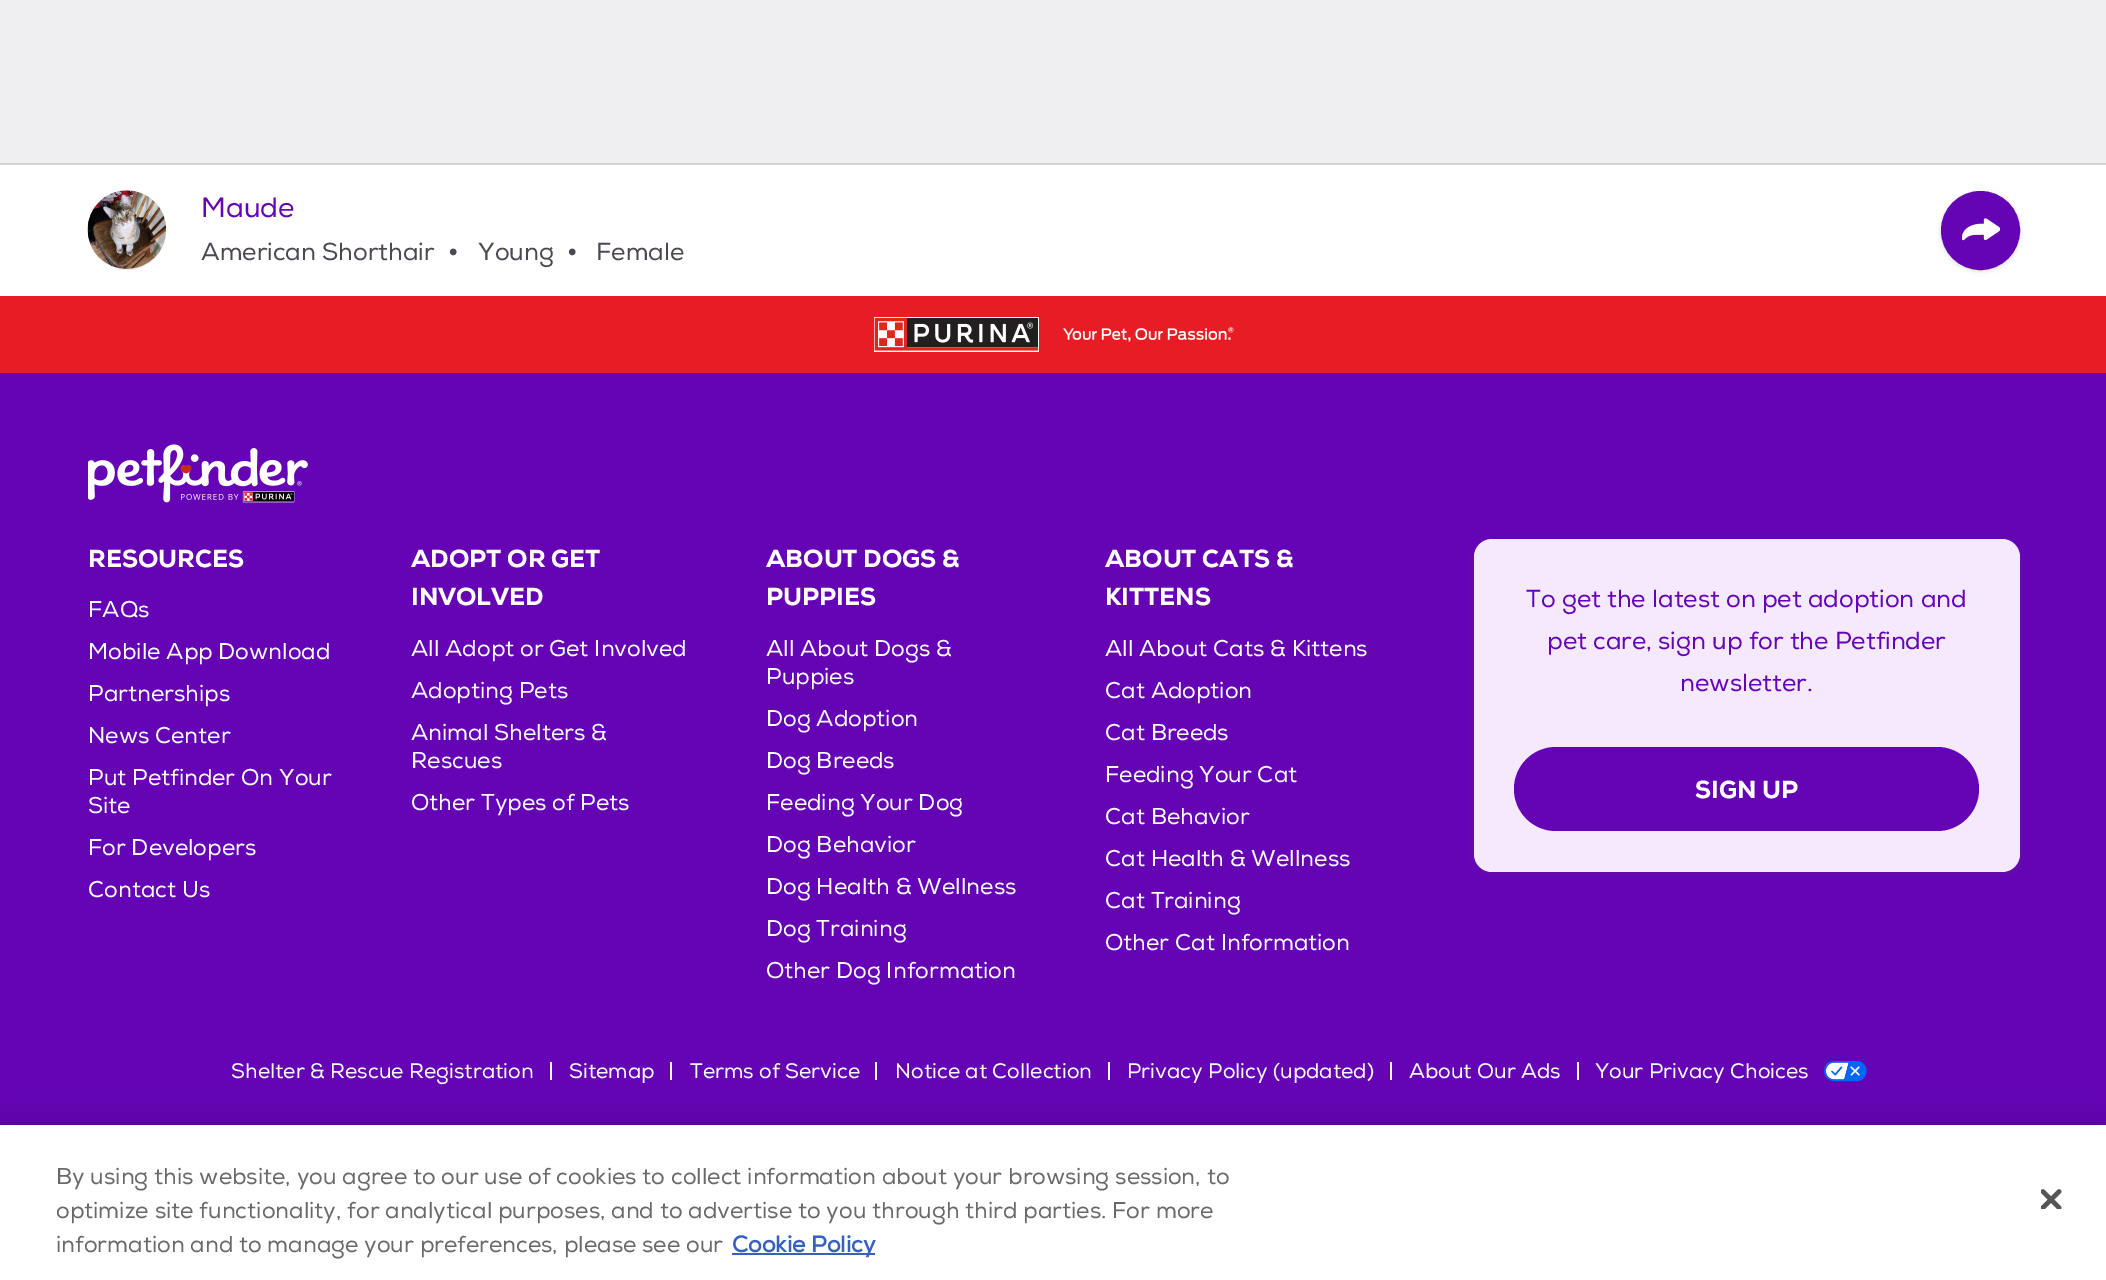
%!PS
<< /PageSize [2106 1280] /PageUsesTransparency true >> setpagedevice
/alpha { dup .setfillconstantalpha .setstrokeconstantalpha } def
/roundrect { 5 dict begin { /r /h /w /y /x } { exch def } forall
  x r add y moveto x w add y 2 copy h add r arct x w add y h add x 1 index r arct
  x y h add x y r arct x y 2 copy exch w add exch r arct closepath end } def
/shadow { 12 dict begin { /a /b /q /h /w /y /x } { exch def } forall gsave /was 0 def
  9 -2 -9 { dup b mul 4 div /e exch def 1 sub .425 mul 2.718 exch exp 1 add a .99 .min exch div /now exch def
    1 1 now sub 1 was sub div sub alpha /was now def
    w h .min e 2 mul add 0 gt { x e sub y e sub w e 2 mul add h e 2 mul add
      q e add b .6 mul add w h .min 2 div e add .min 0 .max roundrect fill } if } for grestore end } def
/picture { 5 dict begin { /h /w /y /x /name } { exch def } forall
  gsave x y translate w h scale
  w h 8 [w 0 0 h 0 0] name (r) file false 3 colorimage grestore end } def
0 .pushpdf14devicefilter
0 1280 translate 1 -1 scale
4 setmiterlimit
0.937 0.933 0.945 setrgbcolor
0 0 2106 1280 rectfill
1 setgray
0 165 2106 131 rectfill
0.824 0.82 0.827 setrgbcolor
0 163 2106 2 rectfill
gsave 88 191 78 79 39 roundrect clip newpath
<< /ShadingType 2 /ColorSpace /DeviceRGB /Coords [127 191 127 270] /Extend [true true] /Function << /FunctionType 2 /Domain [0 1] /C0 [0.855 0.835 0.871] /C1 [0.918 0.914 0.929] /N 1 >> >> shfill grestore
(img1.rgb) 87 190 80 79 picture
/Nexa-Regular [28 0 0 -28 0 0] selectfont
0.396 0.016 0.71 setrgbcolor
201 217 moveto (Maude) show
/Nexa-Regular [24.5 0 0 -24.5 0 0] selectfont
0.302 0.278 0.318 setrgbcolor
201 260 moveto (American Shorthair) show
/LiberationSans-Regular [24.5 0 0 -24.5 0 0] selectfont
449 260 moveto (•) show
/Nexa-Regular [24.5 0 0 -24.5 0 0] selectfont
478 260 moveto (Young) show
/LiberationSans-Regular [24.5 0 0 -24.5 0 0] selectfont
568 260 moveto (•) show
/Nexa-Regular [24.5 0 0 -24.5 0 0] selectfont
596 260 moveto (Female) show
1941 193 79 78 39 2.5 0.2 shadow
0.396 0.016 0.71 setrgbcolor
newpath 1980.5 230.5 37.5 0 360 arc closepath gsave fill grestore
4 setlinewidth
stroke
(img2.rgb) 1962 218 38 23 picture
0 373 2106 752 rectfill
0.91 0.11 0.141 setrgbcolor
0 296 2106 77 rectfill
(img3.rgb) 874 317 360 35 picture
(img4.rgb) 88 444 220 59 picture
/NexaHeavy-Black [24.5 0 0 -24.5 0 0] selectfont
1 setgray
88 567 moveto (RESOURCES) show
/Nexa-Regular [22.75 0 0 -22.75 0 0] selectfont
88 617 moveto (FAQs) show
88 659 moveto (Mobile App Download) show
88 701 moveto (Partnerships) show
88 743 moveto (News Center) show
88 785 moveto (Put Petfinder On Your) show
88 813 moveto (Site) show
88 855 moveto (For Developers) show
88 897 moveto (Contact Us) show
/NexaHeavy-Black [24.5 0 0 -24.5 0 0] selectfont
411 567 moveto (ADOPT OR GET) show
411 605 moveto (INVOLVED) show
/Nexa-Regular [22.75 0 0 -22.75 0 0] selectfont
411 656 moveto (All Adopt or Get Involved) show
411 698 moveto (Adopting Pets) show
411 740 moveto (Animal Shelters &) show
411 768 moveto (Rescues) show
411 810 moveto (Other Types of Pets) show
/NexaHeavy-Black [24.5 0 0 -24.5 0 0] selectfont
766 567 moveto (ABOUT DOGS &) show
766 605 moveto (PUPPIES) show
/Nexa-Regular [22.75 0 0 -22.75 0 0] selectfont
766 656 moveto (All About Dogs &) show
766 684 moveto (Puppies) show
766 726 moveto (Dog Adoption) show
766 768 moveto (Dog Breeds) show
766 810 moveto (Feeding Your Dog) show
766 852 moveto (Dog Behavior) show
766 894 moveto (Dog Health & Wellness) show
766 936 moveto (Dog Training) show
766 978 moveto (Other Dog Information) show
/NexaHeavy-Black [24.5 0 0 -24.5 0 0] selectfont
1105 567 moveto (ABOUT CATS &) show
1105 605 moveto (KITTENS) show
/Nexa-Regular [22.75 0 0 -22.75 0 0] selectfont
1105 656 moveto (All About Cats & Kittens) show
1105 698 moveto (Cat Adoption) show
1105 740 moveto (Cat Breeds) show
1105 782 moveto (Feeding Your Cat) show
1105 824 moveto (Cat Behavior) show
1105 866 moveto (Cat Health & Wellness) show
1105 908 moveto (Cat Training) show
1105 950 moveto (Other Cat Information) show
0.302 0.278 0.318 setrgbcolor
1474 541 546 332 18 2.5 0.2 shadow
0.957 0.914 0.992 setrgbcolor
1474 539 546 333 18 roundrect fill
/Nexa-Regular [24.5 0 0 -24.5 0 0] selectfont
0.396 0.016 0.71 setrgbcolor
1526 607 moveto (To get the latest on pet adoption and) show
1547 649 moveto (pet care, sign up for the Petfinder) show
1680 691 moveto (newsletter.) show
1514 747 465 84 42 roundrect fill
/NexaHeavy-Black [24.5 0 0 -24.5 0 0] selectfont
1 setgray
1695 798 moveto (SIGN UP) show
/Nexa-Regular [21 0 0 -21 0 0] selectfont
231 1078 moveto (Shelter & Rescue Registration) show
550 1062 2 18 rectfill
569 1078 moveto (Sitemap) show
670 1062 2 18 rectfill
690 1078 moveto (Terms of Service) show
875 1062 2 18 rectfill
895 1078 moveto (Notice at Collection) show
1108 1062 2 18 rectfill
1127 1078 moveto (Privacy Policy \(updated\)) show
1390 1062 2 18 rectfill
1409 1078 moveto (About Our Ads) show
1577 1062 2 18 rectfill
1595 1078 moveto (Your Privacy Choices) show
(img5.rgb) 1824 1061 43 21 picture
0 setgray
0 1125 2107 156 0 16 0.2 shadow
1 setgray
0 1125 2106 155 rectfill
/Nexa-Regular [22.75 0 0 -22.75 0 0] selectfont
0.412 setgray
56 1184 moveto (By using this website, you agree to our use of cookies to collect information about your browsing session, to) show
56 1218 moveto (optimize site functionality, for analytical purposes, and to advertise to you through third parties. For more) show
56 1252 moveto (information and to manage your preferences, please see our) show
0.22 0.376 0.745 setrgbcolor
732 1253 143 2 rectfill
/Nexa-Bold [22.75 0 0 -22.75 0 0] selectfont
732 1252 moveto (Cookie Policy) show
(img6.rgb) 2041 1189 21 20 picture
.poppdf14devicefilter showpage
